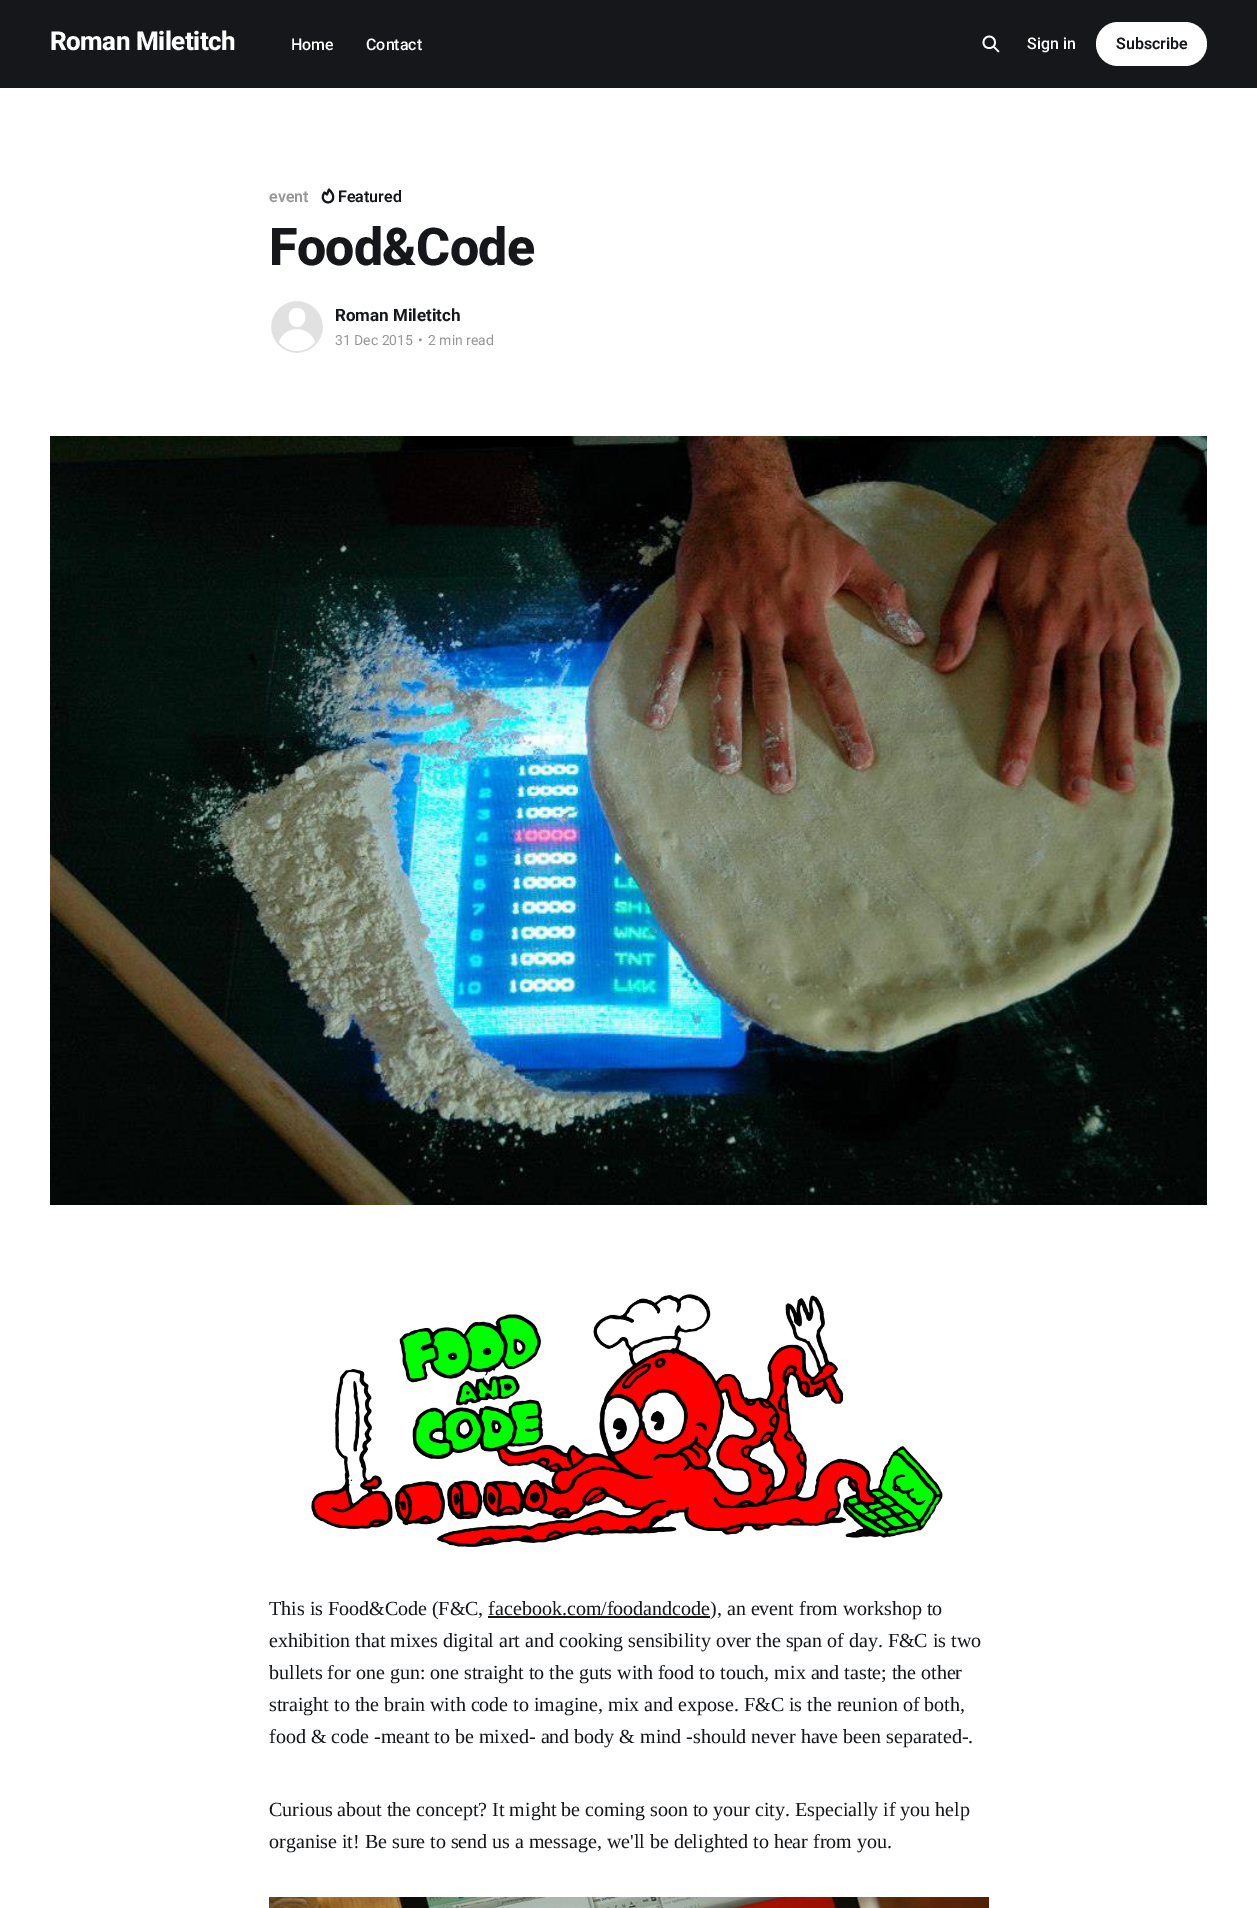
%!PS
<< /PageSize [1257 1908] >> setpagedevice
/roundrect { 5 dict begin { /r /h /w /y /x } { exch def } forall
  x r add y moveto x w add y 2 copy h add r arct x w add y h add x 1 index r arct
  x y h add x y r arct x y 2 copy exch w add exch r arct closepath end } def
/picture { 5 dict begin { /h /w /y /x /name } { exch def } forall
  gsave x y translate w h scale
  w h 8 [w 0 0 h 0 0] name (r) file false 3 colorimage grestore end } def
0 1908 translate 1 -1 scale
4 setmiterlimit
1 setgray
0 0 1257 1908 rectfill
0.082 0.09 0.102 setrgbcolor
0 0 1257 88 rectfill
/Roboto-ExtraBold [26 0 0 -26 0 0] selectfont
1 setgray
50 50 moveto -0.5 0 (Roman Miletitch) ashow
/Roboto-Medium [16 0 0 -16 0 0] selectfont
291 50 moveto (Home) show
366 50 moveto (Contact) show
1.7 setlinewidth
1 setlinecap
1 setlinejoin
newpath 998.5 51.5 moveto 993.5 46.5 lineto 995 42.5 moveto 995 50 983.5 50 983.5 42.5 curveto 983.5 34.5 995 34.5 995 42.5 curveto closepath stroke
1027 49 moveto (Sign in) show
1096 22 111 44 22 roundrect fill
/Roboto-SemiBold [16 0 0 -16 0 0] selectfont
0.082 0.09 0.102 setrgbcolor
1116 49 moveto (Subscribe) show
0.592 setgray
269 202 moveto (event) show
0.082 0.09 0.102 setrgbcolor
2 setlinewidth
newpath 324.5 192.5 moveto 318 202 331.5 206 333 198.5 curveto 334 195 331.5 192 329 189.5 curveto 327 194.5 lineto closepath stroke
338 202 moveto (Featured) show
/Roboto-ExtraBold [52 0 0 -52 0 0] selectfont
269 265 moveto -0.75 0 (Food&Code) ashow
0.882 setgray
newpath 297 327 27 0 360 arc closepath gsave fill grestore
1 setgray
0 setlinecap
0 setlinejoin
stroke
newpath 279 342 moveto 285 325 309 325 315 342 curveto 306 354 288 354 279 342 curveto closepath 297 327 moveto 307 327 309 308 297 308 curveto 285 308 287 327 297 327 curveto closepath eofill
/Roboto-Bold [17 0 0 -17 0 0] selectfont
0.082 0.09 0.102 setrgbcolor
335 321 moveto (Roman Miletitch) show
/Roboto-Regular [14 0 0 -14 0 0] selectfont
0.592 setgray
335 345 moveto (31 Dec 2015) show
418 345 moveto (•) show
428 345 moveto (2 min read) show
(img1.rgb) 50 436 1157 769 picture
(img2.rgb) 311 1294 632 254 picture
/LiberationSerif-Regular [20 0 0 -20 0 0] selectfont
0.082 0.09 0.102 setrgbcolor
269 1615 moveto (This is Food&Code \(F&C, facebook.com/foodandcode\), an event from workshop to) show
488 1616 222 2 rectfill
269 1647 moveto (exhibition that mixes digital art and cooking sensibility over the span of day. F&C is two) show
269 1679 moveto (bullets for one gun: one straight to the guts with food to touch, mix and taste; the other) show
269 1711 moveto (straight to the brain with code to imagine, mix and expose. F&C is the reunion of both,) show
269 1743 moveto (food & code -meant to be mixed- and body & mind -should never have been separated-.) show
269 1816 moveto (Curious about the concept? It might be coming soon to your city. Especially if you help) show
269 1848 moveto (organise it! Be sure to send us a message, we'll be delighted to hear from you.) show
(img3.rgb) 269 1897 720 11 picture
showpage
